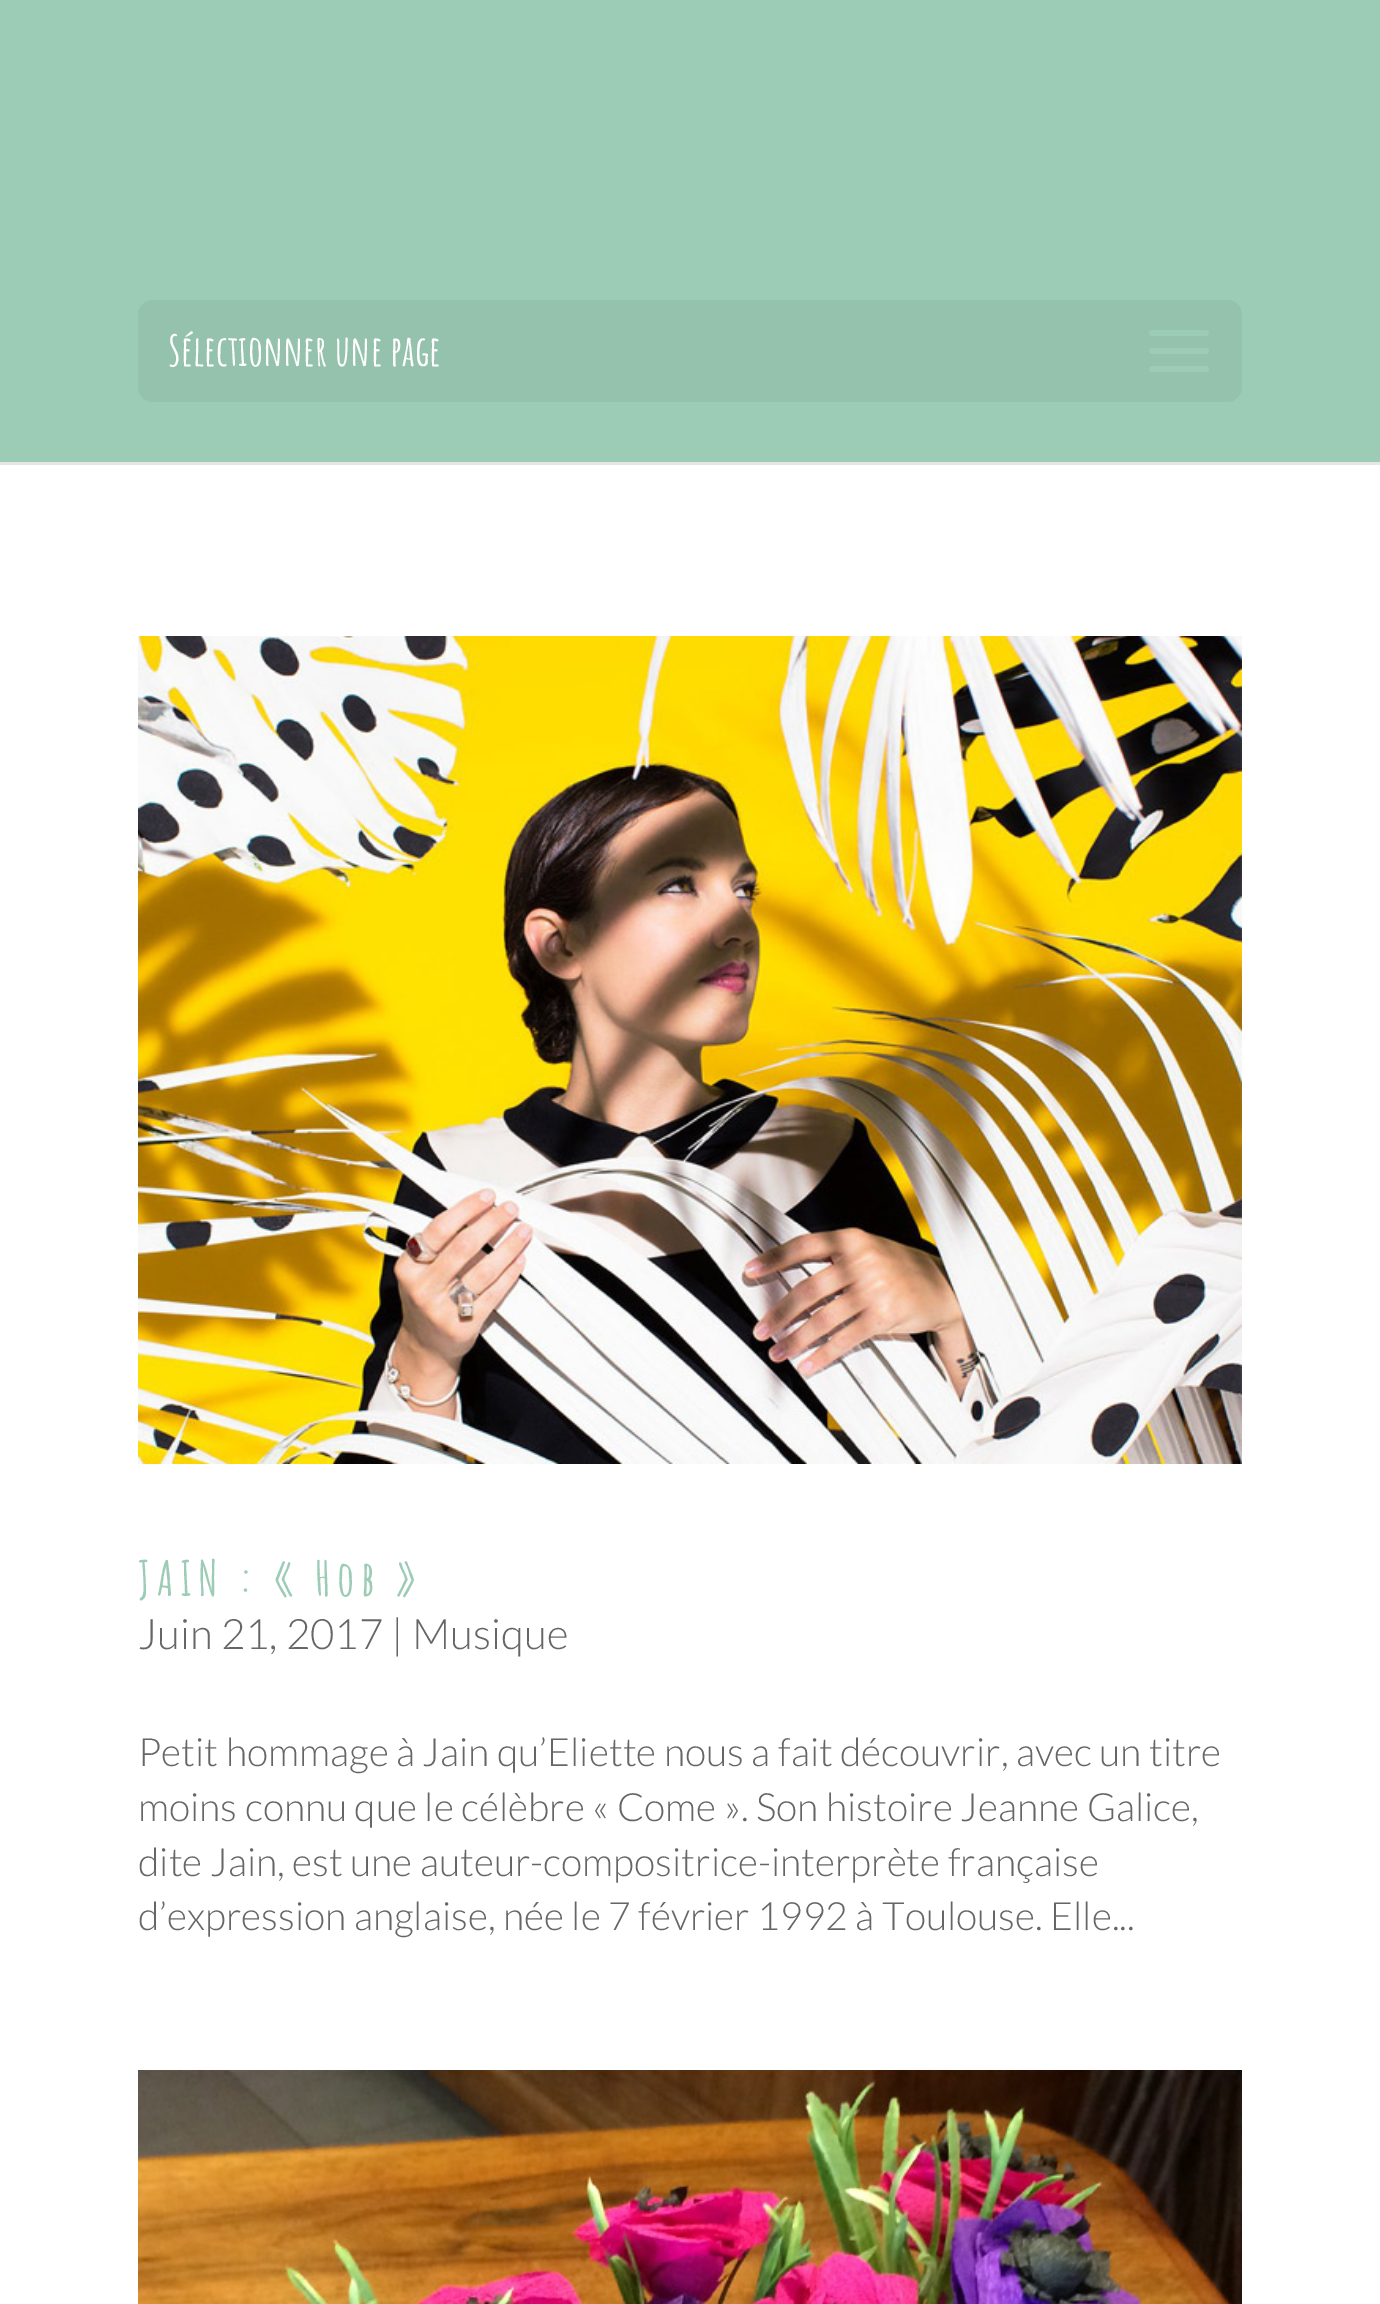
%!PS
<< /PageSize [1380 2304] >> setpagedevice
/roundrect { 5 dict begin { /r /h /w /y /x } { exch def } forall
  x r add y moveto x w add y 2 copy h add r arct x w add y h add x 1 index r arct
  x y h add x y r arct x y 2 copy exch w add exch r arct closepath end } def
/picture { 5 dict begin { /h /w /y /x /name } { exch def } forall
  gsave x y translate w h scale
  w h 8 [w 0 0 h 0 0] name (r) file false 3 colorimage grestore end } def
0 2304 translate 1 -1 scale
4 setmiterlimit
0.616 0.8 0.714 setrgbcolor
0 0 1380 2304 rectfill
0.902 setgray
0 462 1380 3 rectfill
0.584 0.761 0.678 setrgbcolor
138 300 1104 102 15 roundrect fill
/AmaticSC-Bold [42 0 0 -42 0 0] selectfont
1 setgray
168 366 moveto (Sélectionner une page) show
(img1.rgb) 1149 330 60 42 picture
0 465 1380 1839 rectfill
(img2.rgb) 138 636 1104 828 picture
/AmaticSC-Bold [48 0 0 -48 0 0] selectfont
0.616 0.8 0.714 setrgbcolor
138 1596 moveto 6 0 (JAIN : « Hob ») ashow
/Lato-Light [42 0 0 -42 0 0] selectfont
0.4 setgray
138 1649 moveto (Juin 21, 2017 | Musique) show
/Lato-Light [39 0 0 -39 0 0] selectfont
138 1766 moveto (Petit hommage à Jain qu’Eliette nous a fait découvrir, avec un titre) show
138 1821 moveto (moins connu que le célèbre « Come ». Son histoire Jeanne Galice,) show
138 1876 moveto (dite Jain, est une auteur-compositrice-interprète française) show
138 1930 moveto (d’expression anglaise, née le 7 février 1992 à Toulouse. Elle...) show
(img3.rgb) 138 2070 1104 234 picture
showpage
